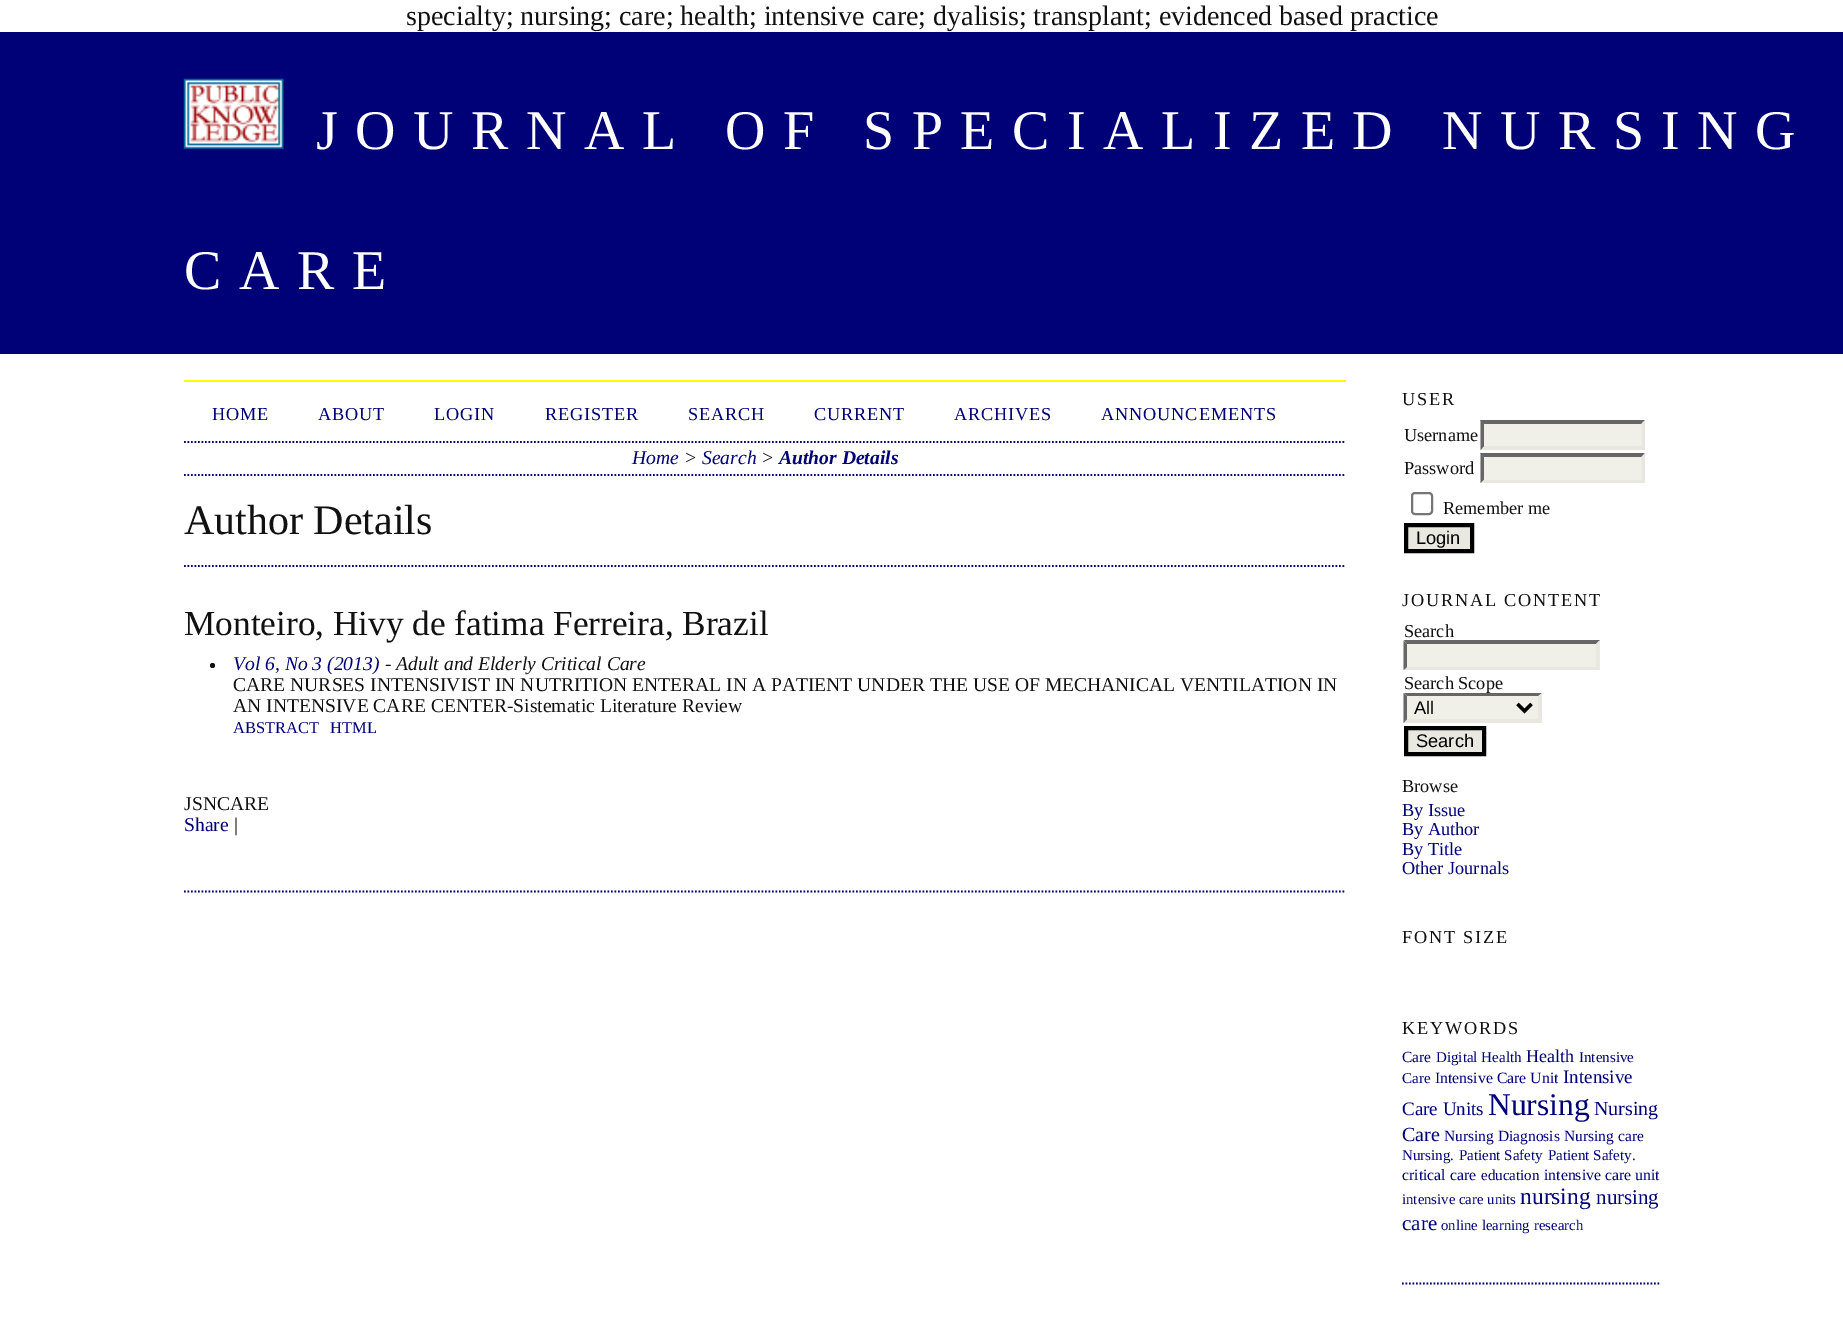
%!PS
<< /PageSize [1843 1336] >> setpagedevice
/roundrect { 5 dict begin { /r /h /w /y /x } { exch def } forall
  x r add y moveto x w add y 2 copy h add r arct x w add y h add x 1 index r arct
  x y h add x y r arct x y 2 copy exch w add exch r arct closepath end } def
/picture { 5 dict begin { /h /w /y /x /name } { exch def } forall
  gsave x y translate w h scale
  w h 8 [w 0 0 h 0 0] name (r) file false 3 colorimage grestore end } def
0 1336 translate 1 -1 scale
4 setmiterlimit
1 setgray
0 0 1843 1336 rectfill
/LiberationSerif-Regular [28 0 0 -28 0 0] selectfont
0.067 setgray
406 25 moveto (specialty; nursing; care; health; intensive care; dyalisis; transplant; evidenced based practice) show
0 0 0.467 setrgbcolor
0 32 1843 322 rectfill
(img1.rgb) 183 78 101 71 picture
/LiberationSerif-Regular [56 0 0 -56 0 0] selectfont
1 setgray
316 149 moveto 17.5 0 (JOURNAL OF SPECIALIZED NURSING) ashow
184 289 moveto 17.5 0 (CARE) ashow
1 1 0 setrgbcolor
184 380 1162 2 rectfill
0 0 0.467 setrgbcolor
1.8 setlinewidth
[1.75 1.75] 0 setdash
newpath 184 891.5 moveto 1346 891.5 lineto stroke
newpath 184 442 moveto 1346 442 lineto stroke
/LiberationSerif-Regular [18.25 0 0 -18.25 0 0] selectfont
212 420 moveto 0.9 0 (HOME) ashow
318 420 moveto 0.9 0 (ABOUT) ashow
434 420 moveto 0.9 0 (LOGIN) ashow
545 420 moveto 0.9 0 (REGISTER) ashow
688 420 moveto 0.9 0 (SEARCH) ashow
814 420 moveto 0.9 0 (CURRENT) ashow
954 420 moveto 0.9 0 (ARCHIVES) ashow
1101 420 moveto 0.9 0 (ANNOUNCEMENTS) ashow
newpath 184 475 moveto 1346 475 lineto stroke
/LiberationSerif-Italic [19.6 0 0 -19.6 0 0] selectfont
632 464 moveto (Home) show
0.067 setgray
684 464 moveto (>) show
0 0 0.467 setrgbcolor
702 464 moveto (Search) show
0.067 setgray
761 464 moveto (>) show
/LiberationSerif-BoldItalic [19.6 0 0 -19.6 0 0] selectfont
0 0 0.467 setrgbcolor
779 464 moveto (Author Details) show
/LiberationSerif-Regular [42 0 0 -42 0 0] selectfont
0.067 setgray
184 534 moveto (Author Details) show
0 0 0.467 setrgbcolor
newpath 184 566 moveto 1346 566 lineto stroke
/LiberationSerif-Regular [35.25 0 0 -35.25 0 0] selectfont
0.067 setgray
184 635 moveto (Monteiro, Hivy de fatima Ferreira, Brazil) show
newpath 212.5 665.5 2.5 0 360 arc closepath fill
/LiberationSerif-Italic [19.6 0 0 -19.6 0 0] selectfont
0 0 0.467 setrgbcolor
233 670 moveto (Vol 6, No 3 \(2013\)) show
0.067 setgray
385 670 moveto (- Adult and Elderly Critical Care) show
/LiberationSerif-Regular [19.6 0 0 -19.6 0 0] selectfont
233 691 moveto (CARE NURSES INTENSIVIST IN NUTRITION ENTERAL IN A PATIENT UNDER THE USE OF MECHANICAL VENTILATION IN) show
233 712 moveto (AN INTENSIVE CARE CENTER-Sistematic Literature Review) show
/LiberationSerif-Regular [16.5 0 0 -16.5 0 0] selectfont
0 0 0.467 setrgbcolor
233 733 moveto (ABSTRACT) show
330 733 moveto (HTML) show
/LiberationSerif-Regular [19.6 0 0 -19.6 0 0] selectfont
0.067 setgray
184 810 moveto (JSNCARE) show
0 0 0.467 setrgbcolor
184 831 moveto (Share) show
0.067 setgray
234 831 moveto (|) show
0 0 0.467 setrgbcolor
newpath 1402 1283.5 moveto 1661 1283.5 lineto stroke
/LiberationSerif-Regular [18.25 0 0 -18.25 0 0] selectfont
0.067 setgray
1402 405 moveto 1.8 0 (USER) ashow
1404 441 moveto (Username) show
0.941 0.941 0.91 setrgbcolor
1481 420 164 30 rectfill
0.4 setgray
newpath 1480 420 moveto 1645 420 lineto 1642 424 lineto 1484 424 lineto closepath fill
0.91 0.91 0.882 setrgbcolor
newpath 1645 420 moveto 1645 450 lineto 1641.5 446 lineto 1641.5 423.5 lineto closepath fill
newpath 1645 450 moveto 1480 450 lineto 1484 446 lineto 1642 446 lineto closepath fill
0.4 setgray
newpath 1480.5 450 moveto 1480.5 420 lineto 1484 423.5 lineto 1484 446 lineto closepath fill
0.067 setgray
1404 474 moveto (Password) show
0.941 0.941 0.91 setrgbcolor
1481 453 164 30 rectfill
0.4 setgray
newpath 1480 453 moveto 1645 453 lineto 1642 457 lineto 1484 457 lineto closepath fill
0.91 0.91 0.882 setrgbcolor
newpath 1645 453 moveto 1645 483 lineto 1641.5 479.5 lineto 1641.5 457 lineto closepath fill
newpath 1645 483 moveto 1480 483 lineto 1484 480 lineto 1642 480 lineto closepath fill
0.4 setgray
newpath 1480.5 483 moveto 1480.5 453 lineto 1484 457 lineto 1484 479.5 lineto closepath fill
0.463 setgray
2 setlinewidth
[] 0 setdash
1412 493 20 21 3 roundrect stroke
0.067 setgray
1443 514 moveto (Remember me) show
0.91 0.91 0.882 setrgbcolor
newpath 1406 525 moveto 1472 525 lineto 1472 551 lineto 1406 551 lineto closepath gsave fill grestore
0 setgray
4 setlinewidth
stroke
/LiberationSans-Regular [18.25 0 0 -18.25 0 0] selectfont
1416 544 moveto (Login) show
/LiberationSerif-Regular [18.25 0 0 -18.25 0 0] selectfont
0.067 setgray
1402 606 moveto 1.8 0 (JOURNAL CONTENT) ashow
1404 637 moveto (Search) show
0.941 0.941 0.91 setrgbcolor
1404 641 196 29 rectfill
0.4 setgray
newpath 1404 640 moveto 1600 640 lineto 1596 644 lineto 1407 644 lineto closepath fill
0.91 0.91 0.882 setrgbcolor
newpath 1599.5 640.5 moveto 1599.5 670 lineto 1596 667 lineto 1596 644 lineto closepath fill
newpath 1600 670 moveto 1404 670 lineto 1407 667 lineto 1596 667 lineto closepath fill
0.4 setgray
newpath 1403.5 670 moveto 1403.5 640.5 lineto 1407 644 lineto 1407 667 lineto closepath fill
0.067 setgray
1404 689 moveto (Search Scope) show
0.941 0.941 0.91 setrgbcolor
1404 693 138 30 rectfill
0.4 setgray
newpath 1404 693 moveto 1542 693 lineto 1538 696 lineto 1407 696 lineto closepath fill
0.91 0.91 0.882 setrgbcolor
newpath 1542 693 moveto 1542 723 lineto 1538 719 lineto 1538 696.5 lineto closepath fill
newpath 1542 723 moveto 1404 723 lineto 1407 719 lineto 1538 719 lineto closepath fill
0.4 setgray
newpath 1403.5 723 moveto 1403.5 693 lineto 1407 696.5 lineto 1407 719 lineto closepath fill
0 setgray
3.5 setlinewidth
newpath 1517.5 704 moveto 1524.5 711 lineto 1531.5 704 lineto stroke
/LiberationSans-Regular [18.25 0 0 -18.25 0 0] selectfont
1414 714 moveto (All) show
0.91 0.91 0.882 setrgbcolor
newpath 1406 728 moveto 1484 728 lineto 1484 754 lineto 1406 754 lineto closepath gsave fill grestore
0 setgray
4 setlinewidth
stroke
1416 747 moveto (Search) show
/LiberationSerif-Regular [18.25 0 0 -18.25 0 0] selectfont
0.067 setgray
1402 792 moveto (Browse) show
0 0 0.467 setrgbcolor
1402 816 moveto (By Issue) show
1402 835 moveto (By Author) show
1402 855 moveto (By Title) show
1402 874 moveto (Other Journals) show
0.067 setgray
1402 943 moveto 1.8 0 (FONT SIZE) ashow
1402 1034 moveto 1.8 0 (KEYWORDS) ashow
/LiberationSerif-Regular [15.5 0 0 -15.5 0 0] selectfont
0 0 0.467 setrgbcolor
1402 1062 moveto (Care) show
/LiberationSerif-Regular [15 0 0 -15 0 0] selectfont
1436 1062 moveto (Digital Health) show
/LiberationSerif-Regular [18 0 0 -18 0 0] selectfont
1526 1062 moveto (Health) show
/LiberationSerif-Regular [15 0 0 -15 0 0] selectfont
1579 1062 moveto (Intensive) show
1402 1083 moveto (Care) show
/LiberationSerif-Regular [15.75 0 0 -15.75 0 0] selectfont
1435 1083 moveto (Intensive Care Unit) show
/LiberationSerif-Regular [19 0 0 -19 0 0] selectfont
1563 1083 moveto (Intensive) show
1402 1115 moveto (Care Units) show
/LiberationSerif-Regular [31.5 0 0 -31.5 0 0] selectfont
1488 1115 moveto (Nursing) show
/LiberationSerif-Regular [20 0 0 -20 0 0] selectfont
1594 1115 moveto (Nursing) show
1402 1141 moveto (Care) show
/LiberationSerif-Regular [15.5 0 0 -15.5 0 0] selectfont
1444 1141 moveto (Nursing Diagnosis) show
1564 1141 moveto (Nursing care) show
/LiberationSerif-Regular [15 0 0 -15 0 0] selectfont
1402 1160 moveto (Nursing.) show
1459 1160 moveto (Patient Safety) show
1548 1160 moveto (Patient Safety.) show
/LiberationSerif-Regular [15.75 0 0 -15.75 0 0] selectfont
1402 1180 moveto (critical care) show
/LiberationSerif-Regular [15 0 0 -15 0 0] selectfont
1481 1180 moveto (education) show
/LiberationSerif-Regular [15.75 0 0 -15.75 0 0] selectfont
1544 1180 moveto (intensive care unit) show
/LiberationSerif-Regular [14.75 0 0 -14.75 0 0] selectfont
1402 1204 moveto (intensive care units) show
/LiberationSerif-Regular [23.5 0 0 -23.5 0 0] selectfont
1520 1204 moveto (nursing) show
/LiberationSerif-Regular [21 0 0 -21 0 0] selectfont
1596 1204 moveto (nursing) show
1402 1230 moveto (care) show
/LiberationSerif-Regular [14.75 0 0 -14.75 0 0] selectfont
1441 1230 moveto (online learning) show
1534 1230 moveto (research) show
showpage
